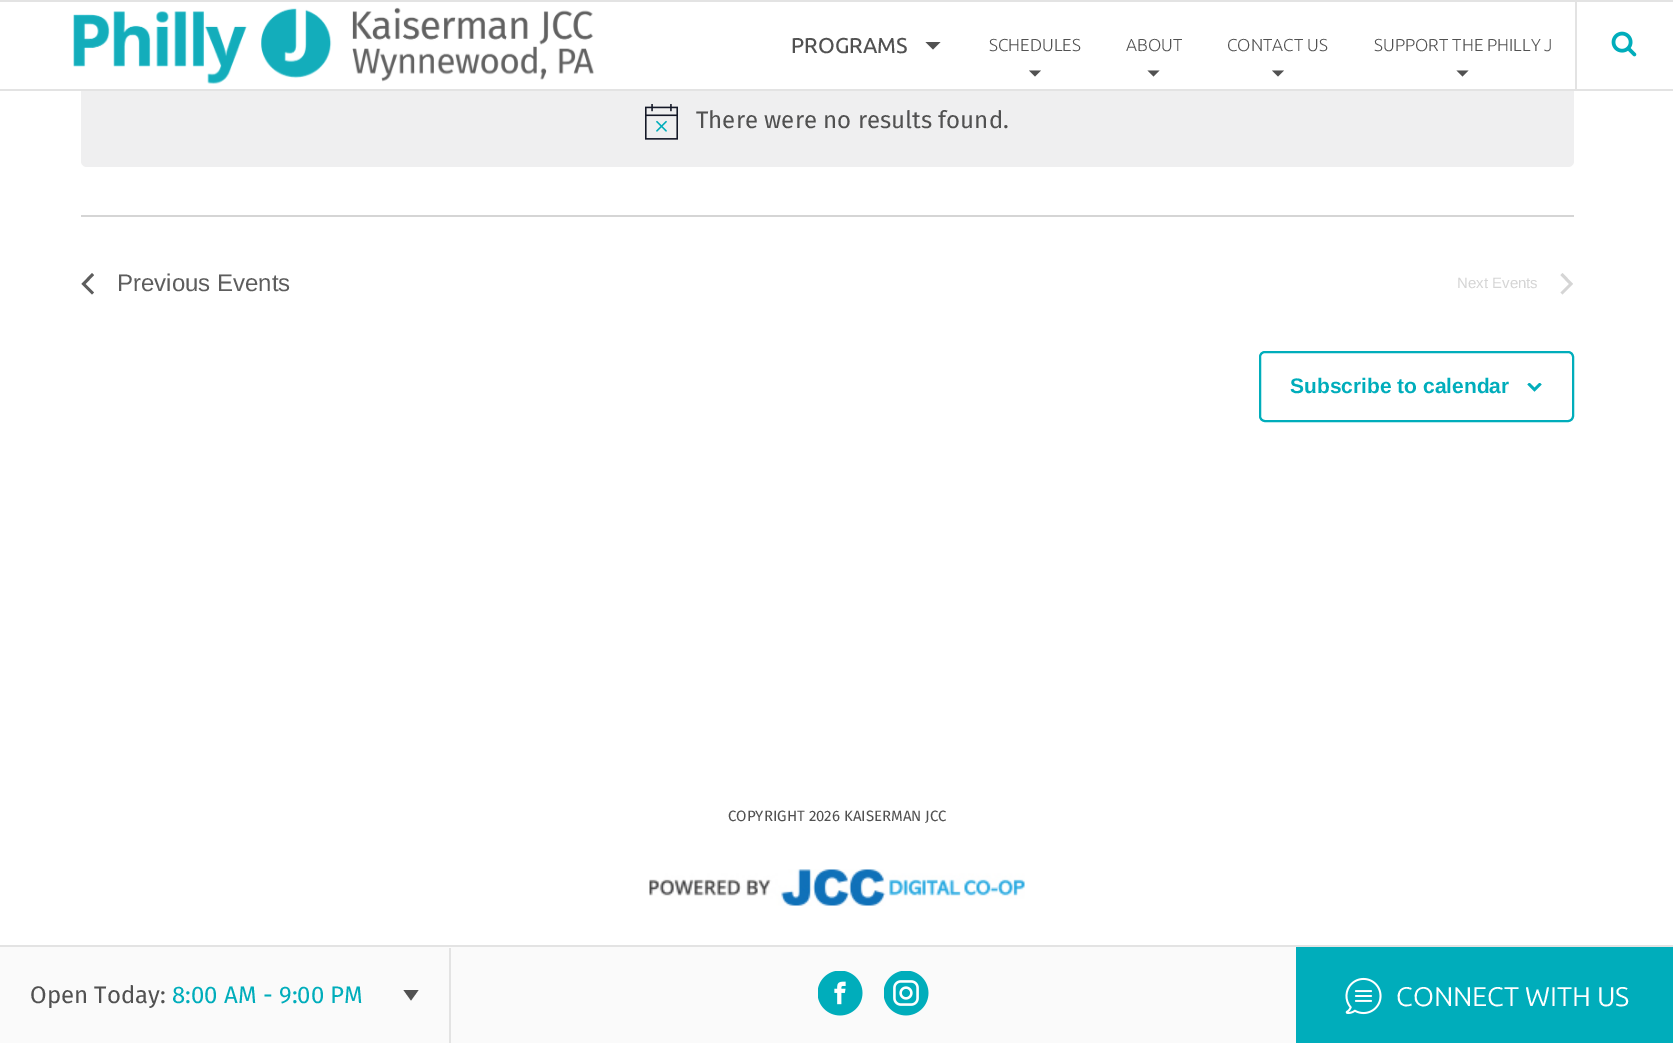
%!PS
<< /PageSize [1673 1043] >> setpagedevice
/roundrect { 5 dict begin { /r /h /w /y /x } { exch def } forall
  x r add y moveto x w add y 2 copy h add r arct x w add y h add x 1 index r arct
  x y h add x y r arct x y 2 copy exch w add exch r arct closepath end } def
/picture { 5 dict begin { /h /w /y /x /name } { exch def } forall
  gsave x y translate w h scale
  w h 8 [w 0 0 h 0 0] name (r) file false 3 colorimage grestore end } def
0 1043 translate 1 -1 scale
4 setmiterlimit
1 setgray
0 0 1673 1043 rectfill
0.937 0.937 0.941 setrgbcolor
81 75 1493 92 6 roundrect fill
1 setgray
81 75 1493 14 rectfill
0.89 setgray
0 0 1673 2 rectfill
0 89 1673 2 rectfill
(img1.rgb) 73 7 522 77 picture
/Ubuntu-Medium [21.5 0 0 -21.5 0 0] selectfont
0.318 setgray
791 53 moveto (PROGRAMS) show
newpath 925.5 42 moveto 940.5 42 lineto 933 49.5 lineto closepath fill
/Ubuntu-Light [17.25 0 0 -17.25 0 0] selectfont
989 51 moveto (SCHEDULES) show
newpath 1029 70.5 moveto 1041 70.5 lineto 1035 76.5 lineto closepath fill
1126 51 moveto (ABOUT) show
newpath 1147.5 70.5 moveto 1159.5 70.5 lineto 1153.5 76.5 lineto closepath fill
1227 51 moveto (CONTACT US) show
newpath 1272 70.5 moveto 1284 70.5 lineto 1278 76.5 lineto closepath fill
1374 51 moveto (SUPPORT THE PHILLY J) show
newpath 1456.5 70.5 moveto 1468.5 70.5 lineto 1462.5 76.5 lineto closepath fill
0.89 setgray
1575 2 2 87 rectfill
(img2.rgb) 1611 31 26 26 picture
(img3.rgb) 645 104 33 36 picture
/FiraSans-Regular [24 0 0 -24 0 0] selectfont
0.318 setgray
696 128 moveto (There were no results found.) show
0.835 setgray
81 215 1493 2 rectfill
0.365 setgray
newpath 94 292.5 moveto 92 294.5 lineto 81.5 284 lineto 92 273 lineto 94 275 lineto 85.5 284 lineto closepath fill
/LiberationSans-Regular [24 0 0 -24 0 0] selectfont
117 291 moveto (Previous Events) show
/LiberationSans-Regular [15 0 0 -15 0 0] selectfont
0.835 setgray
1457 288 moveto (Next Events) show
newpath 1560.5 275 moveto 1562.5 273 lineto 1573 284 lineto 1562.5 294.5 lineto 1560.5 292.5 lineto 1569 284 lineto closepath fill
0 0.678 0.733 setrgbcolor
2 setlinewidth
1260 352 313 69 5 roundrect stroke
/LiberationSans-Bold [21 0 0 -21 0 0] selectfont
1290 393 moveto (Subscribe to calendar) show
(img4.rgb) 1527 383 15 9 picture
/FiraSans-Regular [15 0 0 -15 0 0] selectfont
0.318 setgray
728 821 moveto (COPYRIGHT 2026 KAISERMAN JCC) show
(img5.rgb) 649 869 376 37 picture
0.98 setgray
0 947 1296 96 rectfill
0.89 setgray
0 945 1673 2 rectfill
449 948 2 95 rectfill
/FiraSans-Regular [24 0 0 -24 0 0] selectfont
0.318 setgray
30 1003 moveto (Open Today:) show
0 0.678 0.733 setrgbcolor
172 1003 moveto (8:00 AM - 9:00 PM) show
0.318 setgray
newpath 403.5 990 moveto 418.5 990 lineto 411 1000.5 lineto closepath fill
(img6.rgb) 818 971 45 45 picture
(img7.rgb) 884 971 45 45 picture
0 0.678 0.733 setrgbcolor
1296 947 377 96 rectfill
(img8.rgb) 1345 977 37 38 picture
/Ubuntu-Regular [27 0 0 -27 0 0] selectfont
1 setgray
1396 1006 moveto (CONNECT WITH US) show
showpage
